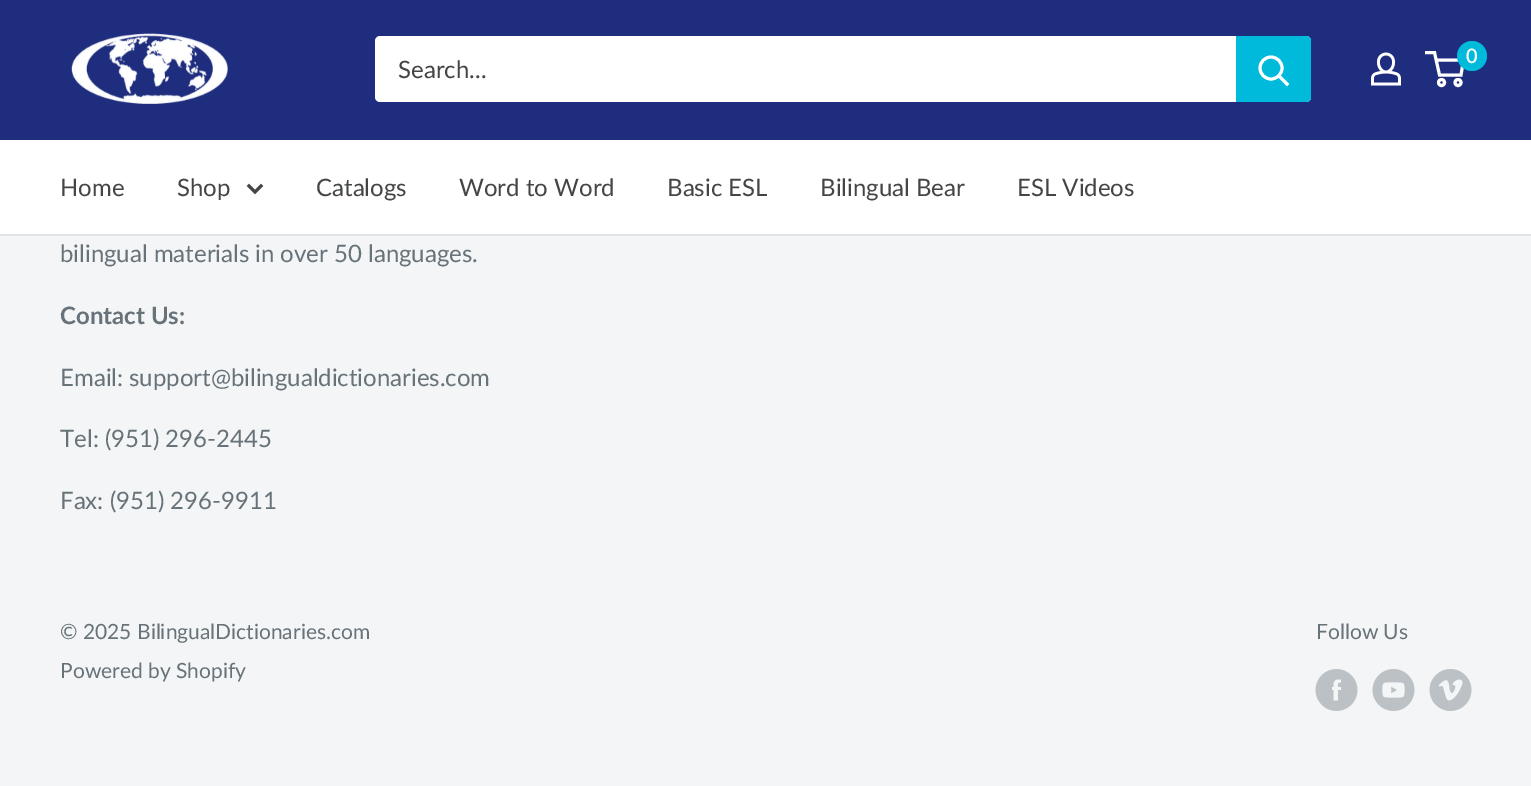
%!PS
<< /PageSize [1531 786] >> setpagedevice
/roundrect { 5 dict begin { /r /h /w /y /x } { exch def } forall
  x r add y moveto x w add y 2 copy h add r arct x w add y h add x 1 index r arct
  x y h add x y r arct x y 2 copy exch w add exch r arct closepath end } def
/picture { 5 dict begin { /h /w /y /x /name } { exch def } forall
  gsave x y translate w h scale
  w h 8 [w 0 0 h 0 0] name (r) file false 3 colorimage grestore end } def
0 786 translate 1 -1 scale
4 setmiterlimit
0.953 0.961 0.965 setrgbcolor
0 0 1531 786 rectfill
0.118 0.176 0.49 setrgbcolor
0 0 1531 140 rectfill
(img1.rgb) 71 33 157 71 picture
(img2.rgb) 1371 52 30 34 picture
1 setgray
3 setlinewidth
newpath 1441.5 82.5 3 0 360 arc closepath stroke
newpath 1458 82.5 3 0 360 arc closepath stroke
newpath 1436 60 moveto 1463.5 60 lineto 1461 75 lineto 1439.5 75 lineto 1434.5 52.5 lineto 1425 52.5 lineto stroke
0 0.729 0.859 setrgbcolor
newpath 1472 56 15 0 360 arc closepath fill
/Lato-SemiBold [20 0 0 -20 0 0] selectfont
1 setgray
1466 63 moveto (0) show
375 36 936 66 5 roundrect fill
/Lato-Regular [24 0 0 -24 0 0] selectfont
0.263 0.271 0.275 setrgbcolor
398 78 moveto (Search...) show
0 0.729 0.859 setrgbcolor
newpath 1236 36 moveto 1306 36 lineto 1309 36 1311 38 1311 41 curveto 1311 97 lineto 1311 100 1309 102 1306 102 curveto 1236 102 lineto closepath fill
1 setgray
2 setlinecap
newpath 1287 84 moveto 1279.5 76.5 lineto stroke
0 setlinecap
newpath 1271 68 11 0 360 arc closepath stroke
0 140 1531 94 rectfill
0.882 0.89 0.894 setrgbcolor
0 234 1531 2 rectfill
0.263 0.271 0.275 setrgbcolor
60 196 moveto (Home) show
177 196 moveto (Shop) show
2 setlinecap
newpath 261 186 moveto 255 192 lineto 249 186 lineto stroke
316 196 moveto (Catalogs) show
459 196 moveto (Word to Word) show
667 196 moveto (Basic ESL) show
820 196 moveto (Bilingual Bear) show
1017 196 moveto (ESL Videos) show
0.404 0.447 0.475 setrgbcolor
60 262 moveto (bilingual materials in over 50 languages.) show
/Lato-Bold [24 0 0 -24 0 0] selectfont
60 324 moveto (Contact Us:) show
/Lato-Regular [24 0 0 -24 0 0] selectfont
60 386 moveto (Email: support@bilingualdictionaries.com) show
60 447 moveto (Tel: \(951\) 296-2445) show
60 509 moveto (Fax: \(951\) 296-9911) show
/Lato-Regular [21 0 0 -21 0 0] selectfont
60 639 moveto (© 2025 BilingualDictionaries.com) show
60 678 moveto (Powered by Shopify) show
1316 639 moveto (Follow Us) show
(img3.rgb) 1315 669 43 42 picture
(img4.rgb) 1372 669 43 42 picture
(img5.rgb) 1429 669 43 42 picture
showpage
